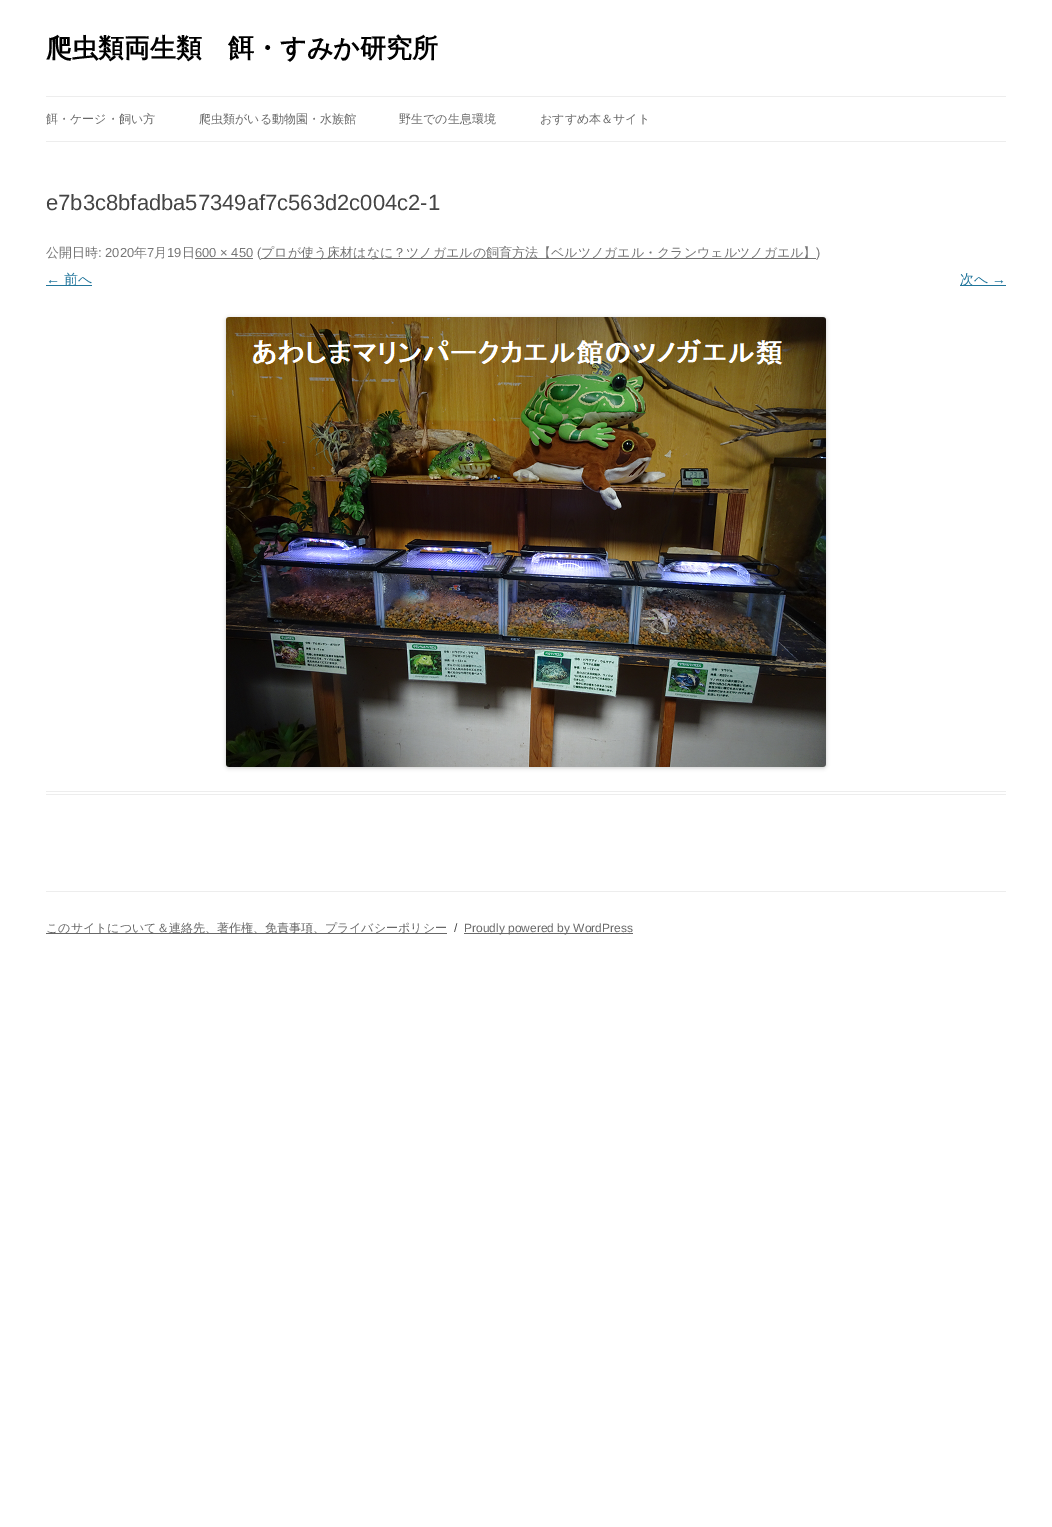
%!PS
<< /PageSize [1052 1527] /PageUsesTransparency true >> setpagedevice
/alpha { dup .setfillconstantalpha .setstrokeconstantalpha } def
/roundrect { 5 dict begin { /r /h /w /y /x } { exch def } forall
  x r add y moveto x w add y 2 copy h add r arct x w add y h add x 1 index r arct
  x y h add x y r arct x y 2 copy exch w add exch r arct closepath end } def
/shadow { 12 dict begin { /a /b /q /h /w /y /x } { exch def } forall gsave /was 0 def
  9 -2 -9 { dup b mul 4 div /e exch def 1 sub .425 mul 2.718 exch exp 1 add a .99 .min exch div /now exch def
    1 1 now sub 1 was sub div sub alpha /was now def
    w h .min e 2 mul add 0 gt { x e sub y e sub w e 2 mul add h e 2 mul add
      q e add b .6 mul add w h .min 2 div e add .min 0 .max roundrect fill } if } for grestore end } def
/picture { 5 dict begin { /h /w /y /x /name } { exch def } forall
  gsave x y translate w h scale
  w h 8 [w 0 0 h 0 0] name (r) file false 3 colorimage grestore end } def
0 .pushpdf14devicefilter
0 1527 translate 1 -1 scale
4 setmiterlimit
1 setgray
0 0 1052 1527 rectfill
/WenQuanYiZenHei-Bold [26 0 0 -26 0 0] selectfont
0 setgray
46 57 moveto (爬虫類両生類　餌・すみか研究所) show
0.929 setgray
46 96 960 1 rectfill
46 141 960 1 rectfill
/WenQuanYiZenHei-Medium [12 0 0 -12 0 0] selectfont
0.408 setgray
46 123 moveto (餌・ケージ・飼い方) show
199 123 moveto (爬虫類がいる動物園・水族館) show
399 123 moveto (野生での生息環境) show
540 123 moveto (おすすめ本＆サイト) show
0.929 setgray
46 791 960 1 rectfill
46 794 960 1 rectfill
/LiberationSans-Regular [22 0 0 -22 0 0] selectfont
0.267 setgray
46 210 moveto (e7b3c8bfadba57349af7c563d2c004c2-1) show
/WenQuanYiZenHei-Medium [13 0 0 -13 0 0] selectfont
0.459 setgray
46 257 moveto (公開日時) show
/LiberationSans-Regular [13 0 0 -13 0 0] selectfont
98 257 moveto (: 2020) show
/WenQuanYiZenHei-Medium [13 0 0 -13 0 0] selectfont
134 257 moveto (年) show
/LiberationSans-Regular [13 0 0 -13 0 0] selectfont
147 257 moveto (7) show
/WenQuanYiZenHei-Medium [13 0 0 -13 0 0] selectfont
154 257 moveto (月) show
/LiberationSans-Regular [13 0 0 -13 0 0] selectfont
167 257 moveto (19) show
/WenQuanYiZenHei-Medium [13 0 0 -13 0 0] selectfont
182 257 moveto (日) show
195 258 58 1 rectfill
/LiberationSans-Regular [13 0 0 -13 0 0] selectfont
195 257 moveto (600 × 450 \() show
261 258 555 1 rectfill
/WenQuanYiZenHei-Medium [13 0 0 -13 0 0] selectfont
261 257 moveto (プロが使う床材はなに？ツノガエルの飼育方法【ベルツノガエル・クランウェルツノガエル】) show
/LiberationSans-Regular [13 0 0 -13 0 0] selectfont
816 257 moveto (\)) show
/LiberationSans-Regular [14 0 0 -14 0 0] selectfont
0.129 0.459 0.608 setrgbcolor
46 284 moveto (←) show
46 285 46 1 rectfill
/WenQuanYiZenHei-Medium [14 0 0 -14 0 0] selectfont
64 284 moveto (前へ) show
960 285 46 1 rectfill
960 284 moveto (次へ) show
/LiberationSans-Regular [14 0 0 -14 0 0] selectfont
992 284 moveto (→) show
0 setgray
226 318 600 450 3 2 0.2 shadow
(img1.rgb) 226 317 600 450 picture
0.929 setgray
46 891 960 1 rectfill
0.408 setgray
46 933 401 1 rectfill
/WenQuanYiZenHei-Medium [12 0 0 -12 0 0] selectfont
46 932 moveto (このサイトについて＆連絡先、著作権、免責事項、プライバシーポリシー) show
/LiberationSans-Regular [12 0 0 -12 0 0] selectfont
0.267 setgray
454 932 moveto (/) show
0.408 setgray
464 933 169 1 rectfill
464 932 moveto (Proudly powered by WordPress) show
.poppdf14devicefilter showpage
